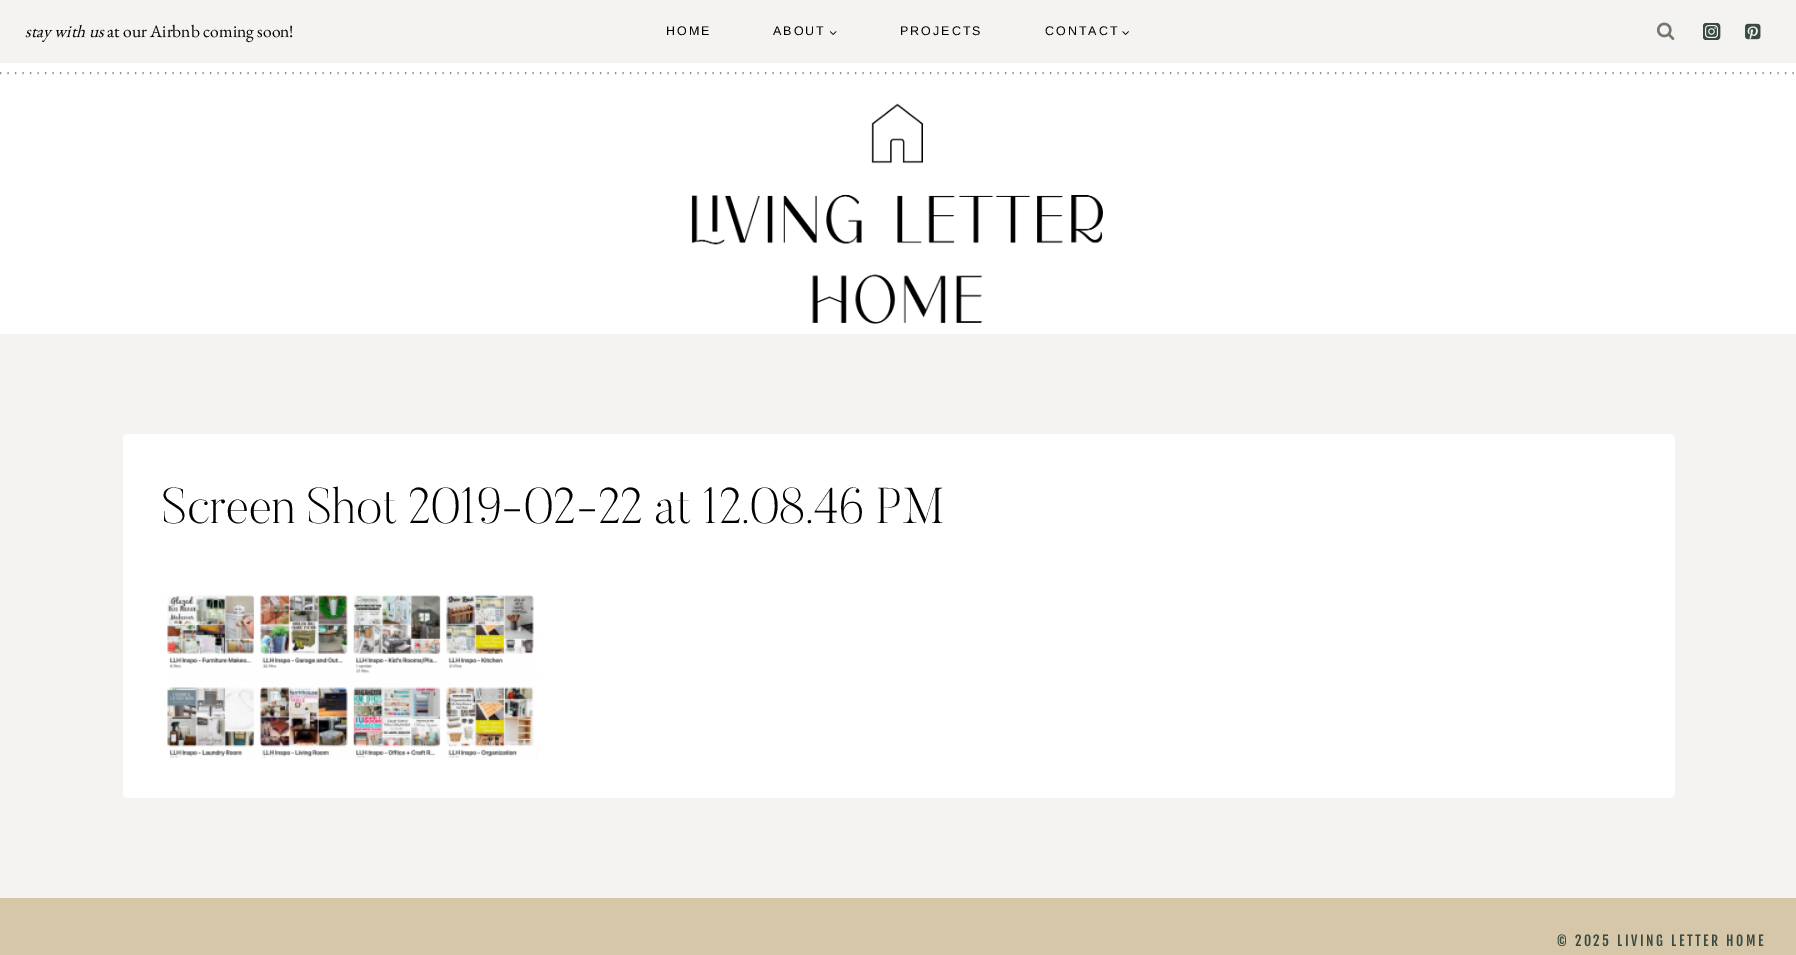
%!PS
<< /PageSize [1796 955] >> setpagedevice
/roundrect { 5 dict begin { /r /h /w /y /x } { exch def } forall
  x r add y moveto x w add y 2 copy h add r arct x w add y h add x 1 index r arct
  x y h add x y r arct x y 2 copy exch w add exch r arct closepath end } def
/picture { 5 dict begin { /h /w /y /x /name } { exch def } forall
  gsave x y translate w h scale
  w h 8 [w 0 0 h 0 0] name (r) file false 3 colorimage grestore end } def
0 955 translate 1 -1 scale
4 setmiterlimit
0.961 0.953 0.945 setrgbcolor
0 0 1796 955 rectfill
1 setgray
0 63 1796 271 rectfill
/EBGaramond-Italic [17.5 0 0 -17.5 0 0] selectfont
0 setgray
25 37 moveto (stay with us) show
/EBGaramond-Regular [17.5 0 0 -17.5 0 0] selectfont
107 37 moveto (at our Airbnb coming soon!) show
/LiberationSans-Regular [12.5 0 0 -12.5 0 0] selectfont
666 35 moveto 2 0 (HOME) ashow
773 35 moveto 2 0 (ABOUT) ashow
(img1.rgb) 829 31 8 4 picture
900 35 moveto 2 0 (PROJECTS) ashow
1045 35 moveto 2 0 (CONTACT) ashow
(img2.rgb) 1122 31 7 4 picture
(img3.rgb) 1656 22 19 18 picture
(img4.rgb) 1703 23 18 17 picture
(img5.rgb) 1745 23 16 17 picture
(img6.rgb) 0 72 1794 3 picture
(img7.rgb) 691 103 412 221 picture
1 setgray
123 434 1552 364 5 roundrect fill
/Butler-ExtraLight [50 0 0 -50 0 0] selectfont
0 setgray
162 523 moveto (Screen Shot 2019-02-22 at 12.08.46 PM) show
(img8.rgb) 167 594 371 164 picture
0.839 0.78 0.663 setrgbcolor
0 898 1796 57 rectfill
/FjallaOne-Regular [13.75 0 0 -13.75 0 0] selectfont
0.22 0.29 0.259 setrgbcolor
1557 946 moveto 2.5 0 (© 2025 LIVING LETTER HOME) ashow
showpage
